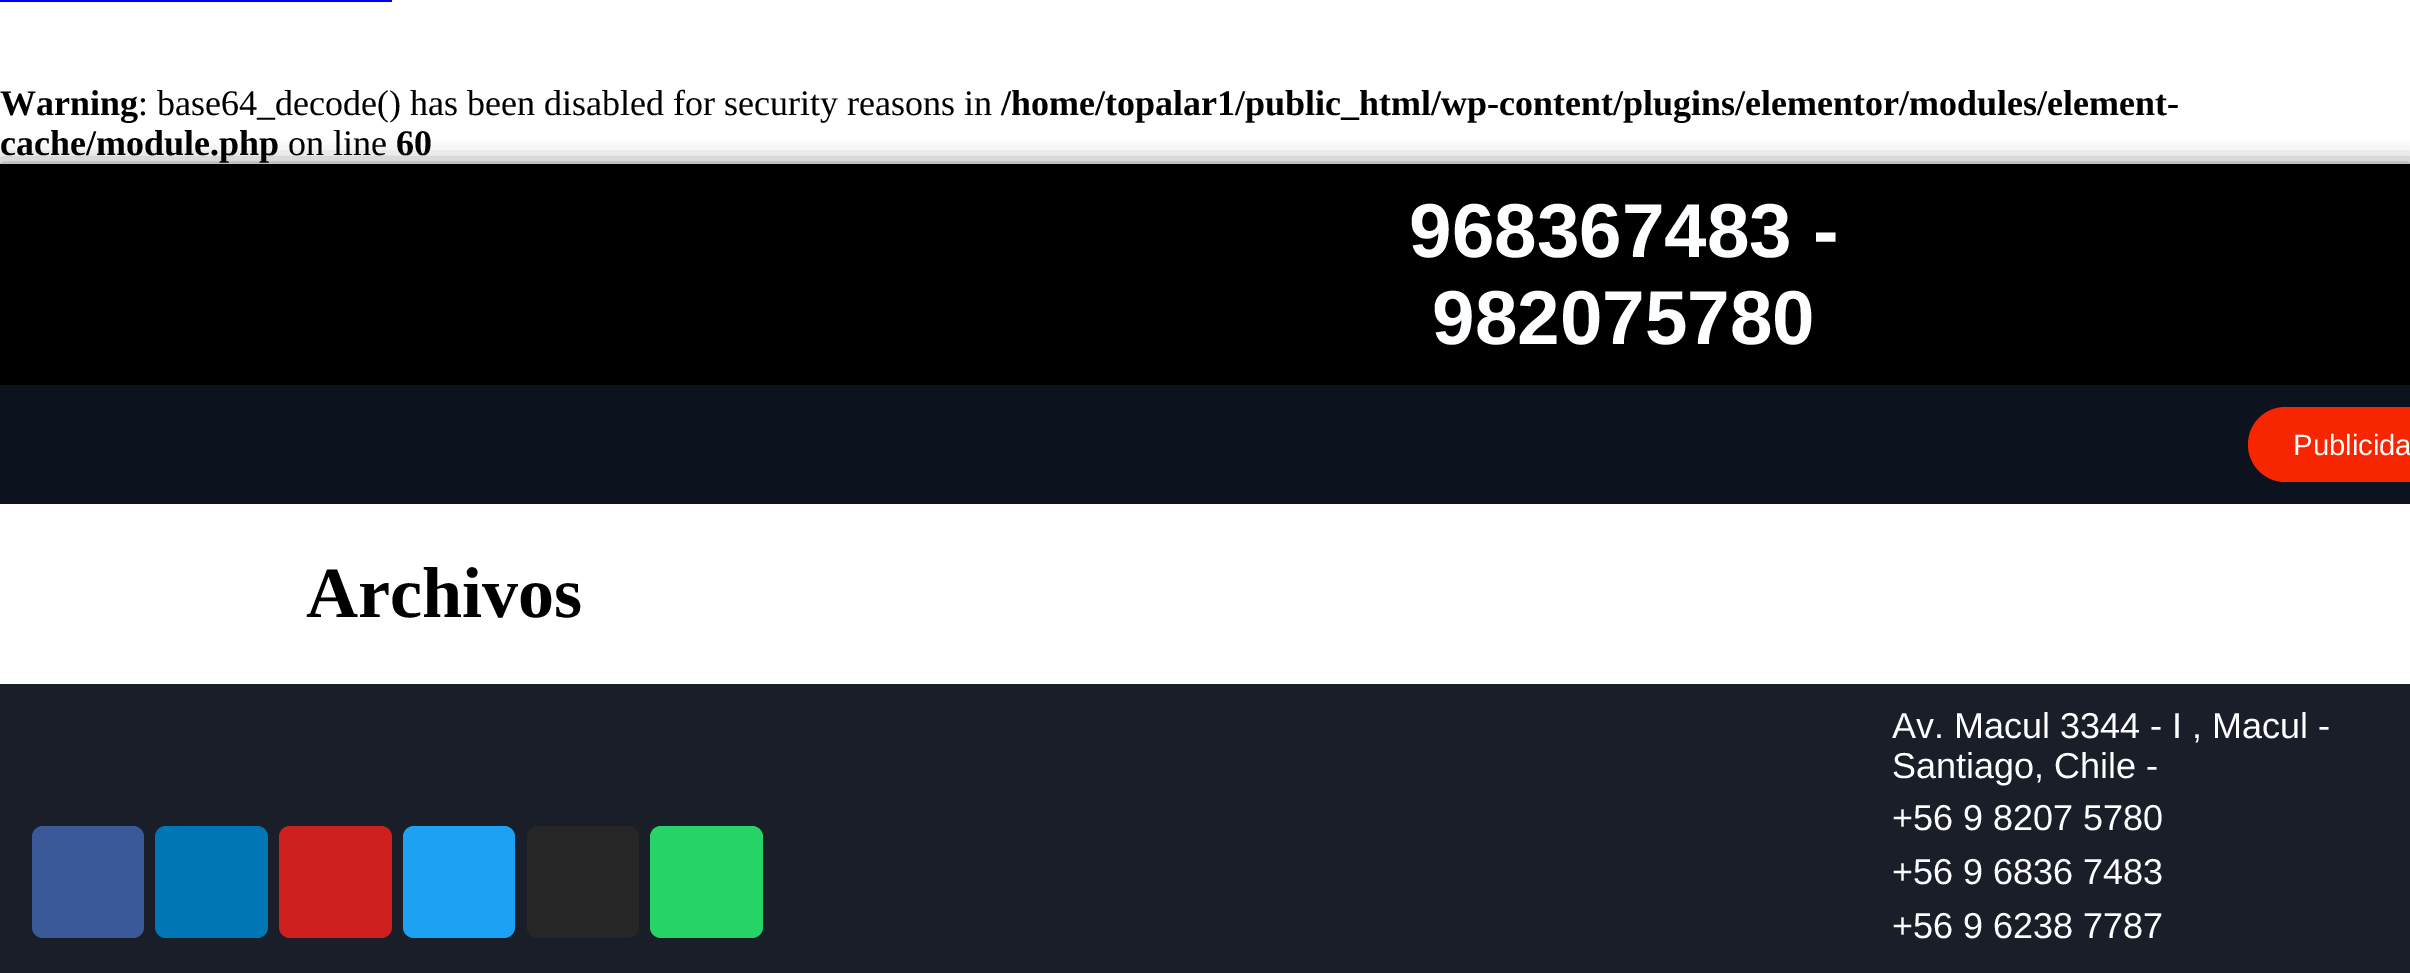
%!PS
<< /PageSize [2410 973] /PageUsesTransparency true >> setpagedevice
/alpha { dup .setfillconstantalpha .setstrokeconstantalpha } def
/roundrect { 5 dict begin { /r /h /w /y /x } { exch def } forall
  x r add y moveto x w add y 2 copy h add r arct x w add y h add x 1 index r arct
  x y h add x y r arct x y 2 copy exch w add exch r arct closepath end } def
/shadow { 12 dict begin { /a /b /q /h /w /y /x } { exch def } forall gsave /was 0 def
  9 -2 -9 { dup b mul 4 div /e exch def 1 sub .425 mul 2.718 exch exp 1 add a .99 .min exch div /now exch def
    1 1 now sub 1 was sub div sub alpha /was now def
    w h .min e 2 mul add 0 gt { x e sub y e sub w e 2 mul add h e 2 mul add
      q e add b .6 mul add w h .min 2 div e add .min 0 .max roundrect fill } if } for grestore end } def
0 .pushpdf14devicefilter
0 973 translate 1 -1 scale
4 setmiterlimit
1 setgray
0 0 2410 973 rectfill
0 0 0.933 setrgbcolor
0 0 392 2 rectfill
/LiberationSerif-Bold [36 0 0 -36 0 0] selectfont
0 setgray
0 115 moveto (Warning) show
/LiberationSerif-Regular [36 0 0 -36 0 0] selectfont
138 115 moveto (: base64_decode\(\) has been disabled for security reasons in) show
/LiberationSerif-Bold [36 0 0 -36 0 0] selectfont
1001 115 moveto (/home/topalar1/public_html/wp-content/plugins/elementor/modules/element-) show
0 155 moveto (cache/module.php) show
/LiberationSerif-Regular [36 0 0 -36 0 0] selectfont
288 155 moveto (on line) show
/LiberationSerif-Bold [36 0 0 -36 0 0] selectfont
396 155 moveto (60) show
0 164 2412 221 0 11 0.5 shadow
0 164 2410 221 rectfill
/LiberationSans-Bold [76.5 0 0 -76.5 0 0] selectfont
0.992 0.996 1 setrgbcolor
1409 257 moveto (968367483 -) show
1432 344 moveto (982075780) show
0.051 0.071 0.122 setrgbcolor
0 385 2410 119 rectfill
0.969 0.149 0 setrgbcolor
2248 407 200 75 37.5 roundrect fill
/LiberationSans-Regular [29.25 0 0 -29.25 0 0] selectfont
0.992 0.996 1 setrgbcolor
2293 455 moveto (Publicida) show
/LiberationSerif-Bold [72 0 0 -72 0 0] selectfont
0 setgray
306 617 moveto (Archivos) show
0.102 0.118 0.161 setrgbcolor
0 684 2410 289 rectfill
0.231 0.349 0.596 setrgbcolor
32 826 112 112 11 roundrect fill
0 0.467 0.71 setrgbcolor
155 826 113 112 11 roundrect fill
0.804 0.125 0.122 setrgbcolor
279 826 113 112 11 roundrect fill
0.114 0.631 0.949 setrgbcolor
403 826 112 112 11 roundrect fill
0.149 setgray
527 826 112 112 11 roundrect fill
0.145 0.827 0.4 setrgbcolor
650 826 113 112 11 roundrect fill
/LiberationSans-Regular [36 0 0 -36 0 0] selectfont
0.992 0.996 1 setrgbcolor
1892 738 moveto (Av. Macul 3344 - I , Macul -) show
1892 778 moveto (Santiago, Chile -) show
1892 830 moveto (+56 9 8207 5780) show
1892 884 moveto (+56 9 6836 7483) show
1892 938 moveto (+56 9 6238 7787) show
.poppdf14devicefilter showpage
